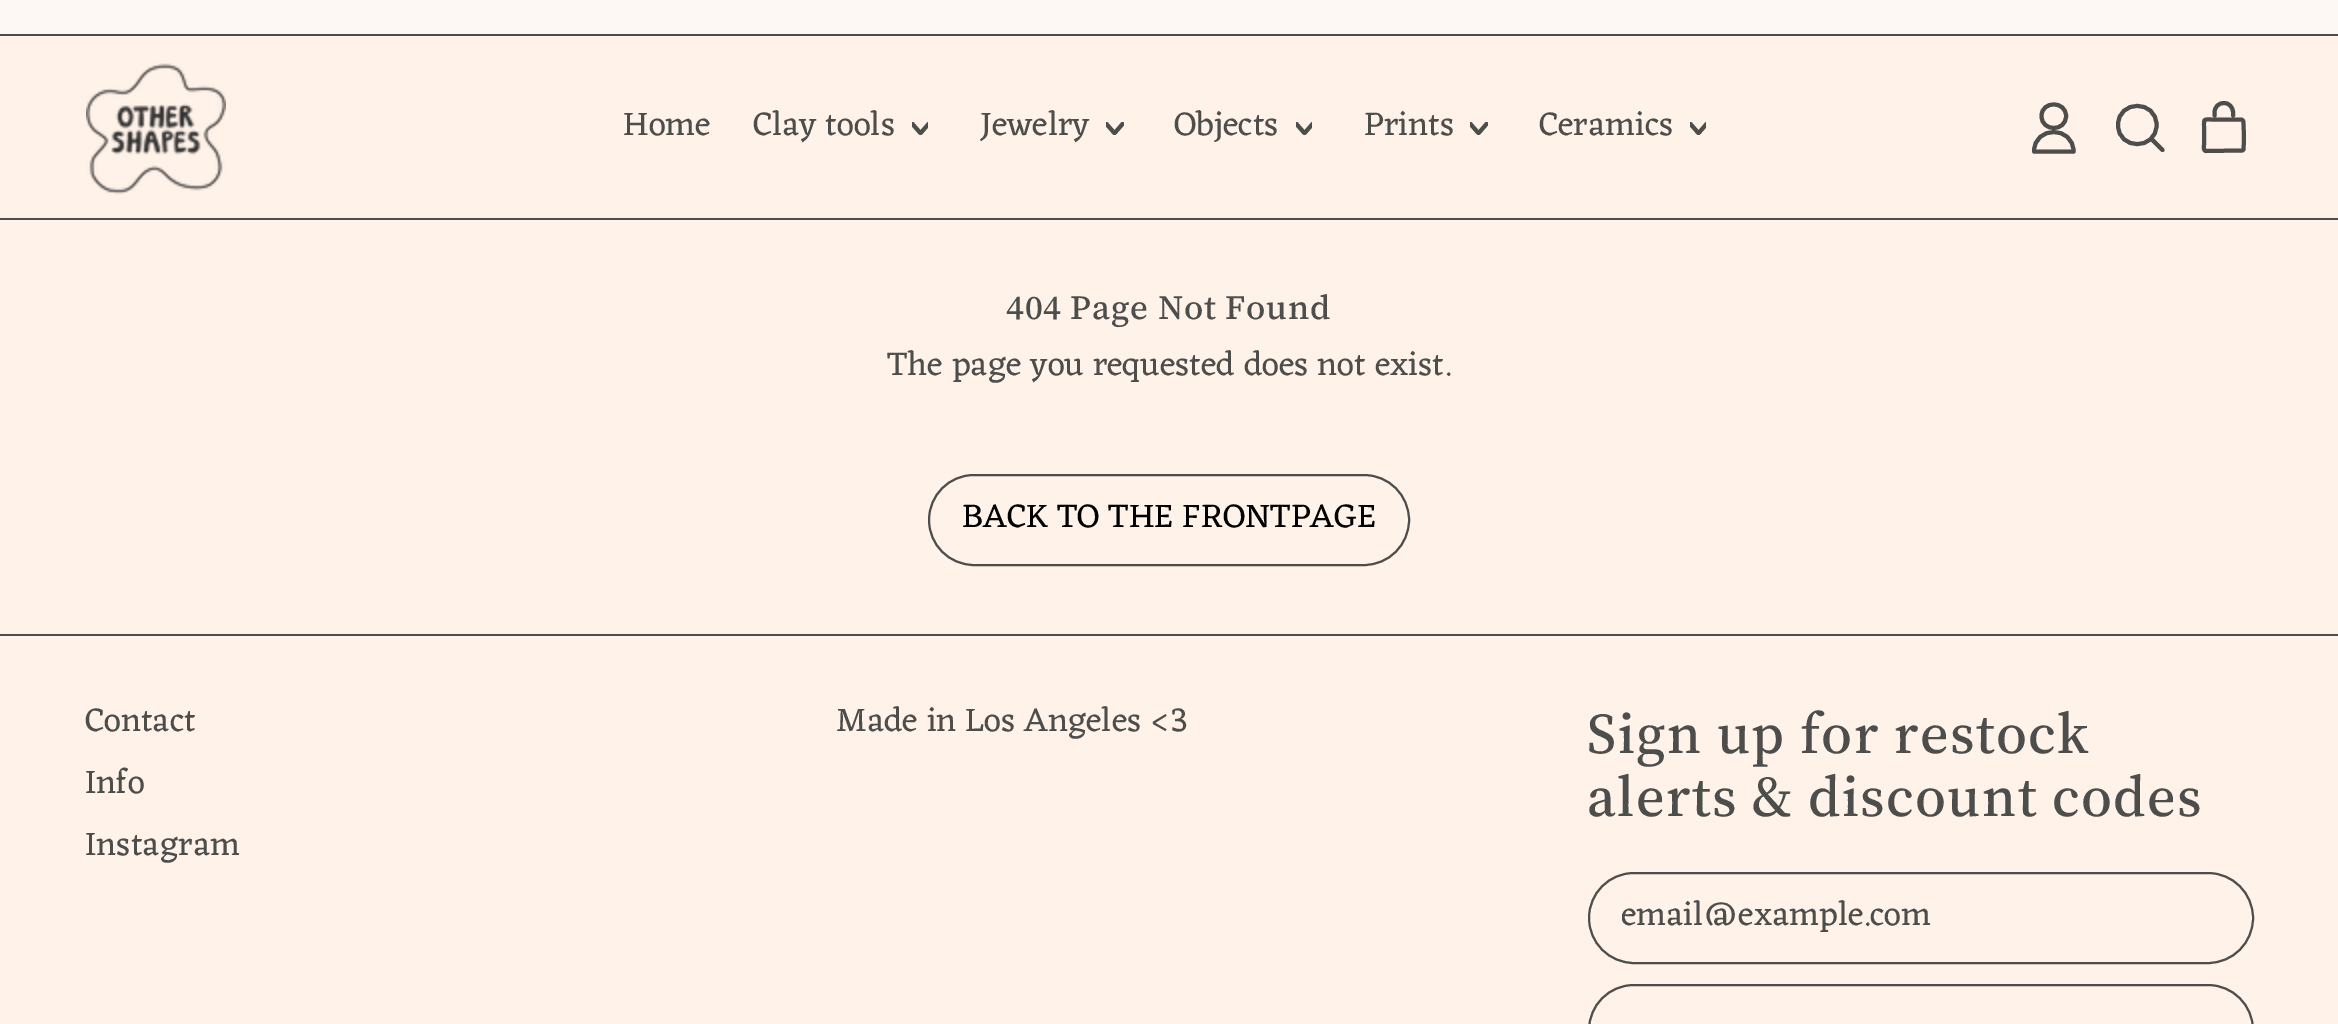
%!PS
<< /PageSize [2338 1024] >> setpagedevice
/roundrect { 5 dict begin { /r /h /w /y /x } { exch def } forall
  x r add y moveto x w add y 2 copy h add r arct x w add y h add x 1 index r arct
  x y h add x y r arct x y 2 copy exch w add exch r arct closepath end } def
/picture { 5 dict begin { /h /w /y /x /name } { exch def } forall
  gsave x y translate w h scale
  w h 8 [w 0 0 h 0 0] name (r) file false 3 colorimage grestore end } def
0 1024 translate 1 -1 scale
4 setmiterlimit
1 0.949 0.914 setrgbcolor
0 0 2338 1024 rectfill
0.992 0.973 0.957 setrgbcolor
0 0 2338 34 rectfill
0.302 0.302 0.298 setrgbcolor
0 34 2338 2 rectfill
0 218 2338 2 rectfill
(img1.rgb) 86 63 140 132 picture
/Eczar-Regular [34 0 0 -34 0 0] selectfont
623 135 moveto (Home) show
753 135 moveto (Clay tools) show
gsave
912 120 16 16 rectclip
4 setlinewidth
1 setlinecap
1 setlinejoin
newpath 912.5 124 moveto 919 131.5 lineto 921 133.5 920 133.5 922 131.5 curveto 928.5 124 lineto stroke
grestore
980 135 moveto (Jewelry) show
gsave
1106 120 18 16 rectclip
4 setlinewidth
1 setlinecap
1 setlinejoin
newpath 1106.5 124 moveto 1113 131.5 lineto 1115 133.5 1114 133.5 1116 131.5 curveto 1122.5 124 lineto stroke
grestore
1174 135 moveto (Objects) show
gsave
1296 120 16 16 rectclip
4 setlinewidth
1 setlinecap
1 setlinejoin
newpath 1296.5 124 moveto 1303 131.5 lineto 1305 133.5 1304 133.5 1306 131.5 curveto 1312.5 124 lineto stroke
grestore
1364 135 moveto (Prints) show
gsave
1470 120 18 16 rectclip
4 setlinewidth
1 setlinecap
1 setlinejoin
newpath 1470.5 124 moveto 1477 131.5 lineto 1479 133.5 1478 133.5 1480 131.5 curveto 1486.5 124 lineto stroke
grestore
1539 135 moveto (Ceramics) show
gsave
1690 120 16 16 rectclip
4 setlinewidth
1 setlinecap
1 setlinejoin
newpath 1690.5 124 moveto 1697 131.5 lineto 1699 133.5 1698 133.5 1700 131.5 curveto 1706.5 124 lineto stroke
grestore
4 setlinewidth
1 setlinecap
1 setlinejoin
newpath 2041.5 116 moveto 2041.5 132 2066 132 2066 116 curveto 2066 100.5 2041.5 100.5 2041.5 116 curveto closepath 2034 151.5 moveto 2034 125.5 2073.5 125.5 2073.5 151.5 curveto closepath stroke
newpath 2118 125 moveto 2118 150.5 2156.5 150.5 2156.5 125 curveto 2156.5 99.5 2118 99.5 2118 125 curveto closepath 2162.5 150 moveto 2151 138.5 lineto stroke
newpath 2241.5 119.5 moveto 2212 119.5 lineto 2203.5 119.5 2204 118.5 2204 126.5 curveto 2204 144.5 lineto 2204 146 2203 151 2206 151 curveto 2242.5 150.5 lineto 2243.5 149.5 lineto 2244 147 2244 121 2243 120.5 curveto closepath 2214.5 115.5 moveto 2214.5 112.5 lineto 2214.5 107 2218.5 103 2224 103 curveto 2229 103 2233 107 2233 112.5 curveto 2233 115.5 lineto stroke
/SourceSerif4-Medium [34 0 0 -34 0 0] selectfont
1006 319 moveto 0.8 0 (404 Page Not Found) ashow
/Eczar-Regular [34 0 0 -34 0 0] selectfont
887 375 moveto (The page you requested does not exist.) show
2 setlinewidth
0 setlinecap
0 setlinejoin
929 475 480 90 45 roundrect stroke
0 setgray
962 527 moveto (BACK TO THE FRONTPAGE) show
0.302 0.302 0.298 setrgbcolor
0 634 2338 2 rectfill
85 731 moveto (Contact) show
85 793 moveto (Info) show
85 855 moveto (Instagram) show
836 731 moveto (Made in Los Angeles <3) show
/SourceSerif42-Medium [57.25 0 0 -57.25 0 0] selectfont
1587 753 moveto 1.4 0 (Sign up for restock) ashow
1587 816 moveto 1.4 0 (alerts & discount codes) ashow
1589 873 664 90 45 roundrect stroke
gsave
1622 886 598 60 rectclip
/Eczar-Regular [34 0 0 -34 0 0] selectfont
1621 925 moveto (email@example.com) show
grestore
1589 985 664 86 45 roundrect stroke
showpage
